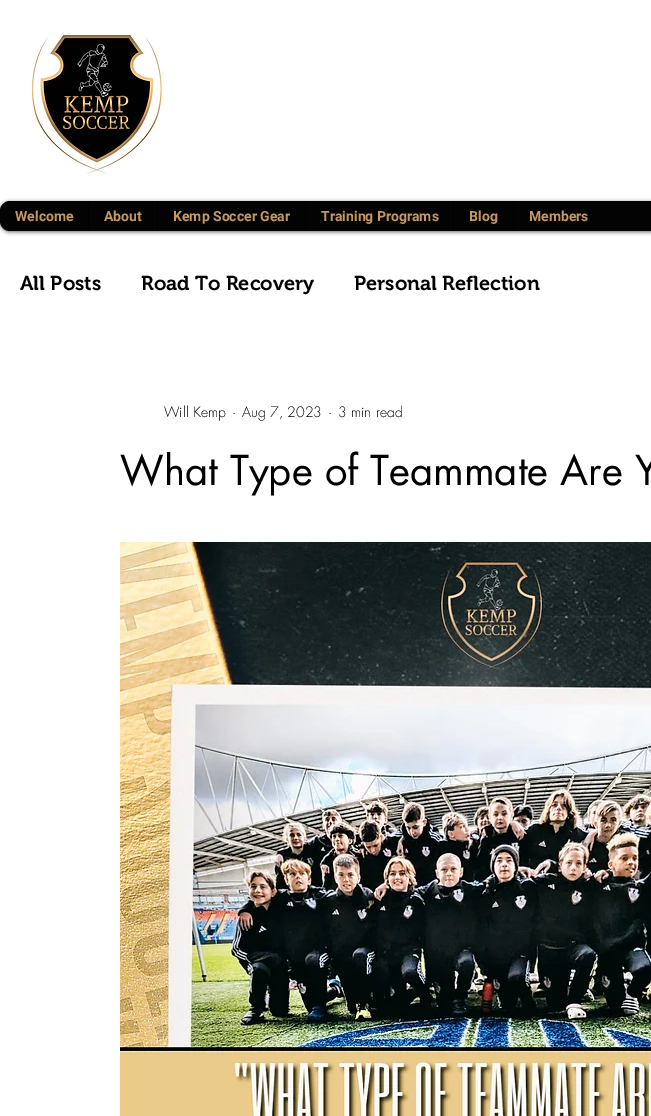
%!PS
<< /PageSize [651 1116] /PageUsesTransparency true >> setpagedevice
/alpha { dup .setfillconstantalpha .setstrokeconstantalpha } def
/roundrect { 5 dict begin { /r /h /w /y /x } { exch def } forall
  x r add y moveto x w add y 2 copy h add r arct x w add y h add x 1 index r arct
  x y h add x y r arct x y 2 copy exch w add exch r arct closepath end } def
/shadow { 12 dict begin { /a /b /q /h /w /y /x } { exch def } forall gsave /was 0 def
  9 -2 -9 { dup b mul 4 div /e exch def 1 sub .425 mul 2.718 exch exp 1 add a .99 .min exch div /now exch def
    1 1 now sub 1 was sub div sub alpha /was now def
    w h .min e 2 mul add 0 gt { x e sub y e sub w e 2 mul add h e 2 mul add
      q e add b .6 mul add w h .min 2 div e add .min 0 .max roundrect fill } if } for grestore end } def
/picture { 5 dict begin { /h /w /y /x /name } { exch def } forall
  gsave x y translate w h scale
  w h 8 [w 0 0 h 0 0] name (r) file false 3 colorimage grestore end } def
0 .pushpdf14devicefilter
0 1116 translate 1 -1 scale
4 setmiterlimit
1 setgray
0 0 651 1116 rectfill
(img1.rgb) 31 35 131 139 picture
0 setgray
0 202 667 30 10 2 0.6 shadow
0.012 setgray
0 201 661 30 10 roundrect fill
/Roboto-Bold [14 0 0 -14 0 0] selectfont
0.765 0.596 0.384 setrgbcolor
15 221 moveto (Welcome) show
0 setgray
88 201 1 30 rectfill
0.765 0.596 0.384 setrgbcolor
104 221 moveto (About) show
0 setgray
157 201 1 30 rectfill
0.765 0.596 0.384 setrgbcolor
173 221 moveto (Kemp Soccer Gear) show
0 setgray
305 201 1 30 rectfill
0.765 0.596 0.384 setrgbcolor
321 221 moveto (Training Programs) show
0 setgray
453 201 1 30 rectfill
0.765 0.596 0.384 setrgbcolor
469 221 moveto (Blog) show
0 setgray
513 201 1 30 rectfill
0.765 0.596 0.384 setrgbcolor
529 221 moveto (Members) show
/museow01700-SemiBold [20 0 0 -20 0 0] selectfont
0 setgray
20 290 moveto (All Posts) show
141 290 moveto (Road To Recovery) show
354 290 moveto (Personal Reflection) show
/futura-Light [14 0 0 -14 0 0] selectfont
164 417 moveto (Will Kemp) show
232 417 moveto (·) show
242 417 moveto (Aug 7, 2023) show
328 417 moveto (·) show
338 417 moveto (3 min read) show
/futura-Regular [40 0 0 -40 0 0] selectfont
120 485 moveto (What Type of Teammate Are Y) show
(img2.rgb) 120 542 531 574 picture
.poppdf14devicefilter showpage
